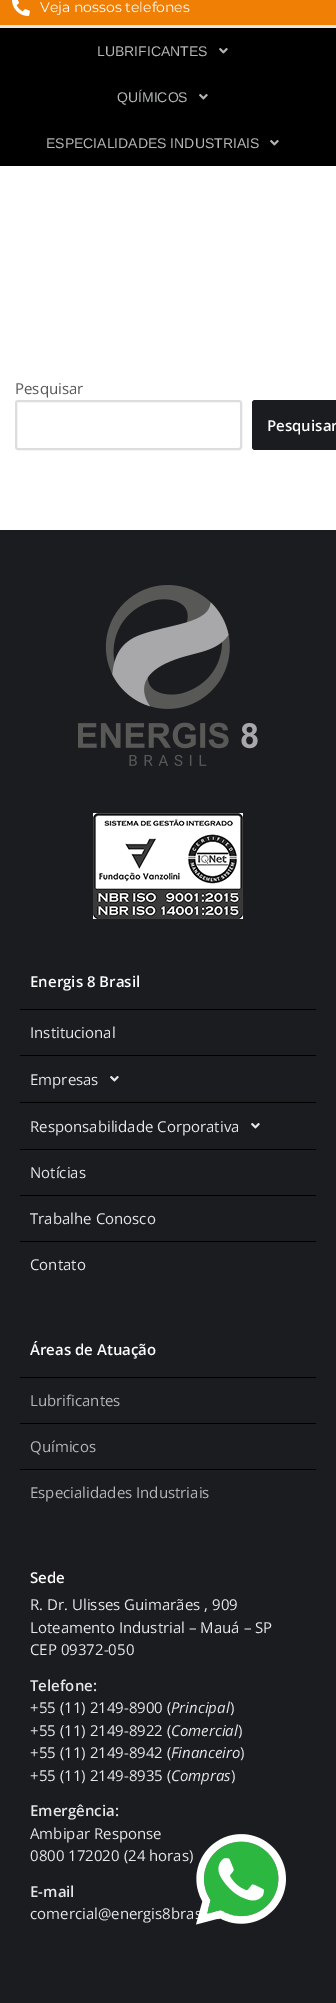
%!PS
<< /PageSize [336 2003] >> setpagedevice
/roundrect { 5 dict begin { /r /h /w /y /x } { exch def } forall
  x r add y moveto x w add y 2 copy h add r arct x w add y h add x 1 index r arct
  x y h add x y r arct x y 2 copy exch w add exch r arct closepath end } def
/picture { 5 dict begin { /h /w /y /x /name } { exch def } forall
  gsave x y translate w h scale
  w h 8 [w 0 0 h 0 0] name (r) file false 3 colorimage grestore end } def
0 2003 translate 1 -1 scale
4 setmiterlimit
1 setgray
0 0 336 2003 rectfill
0.906 0.906 0.91 setrgbcolor
0 25 336 3 rectfill
0.937 0.498 0.02 setrgbcolor
0 0 336 25 rectfill
(img1.rgb) 12 0 18 16 picture
/Montserrat-Regular [14 0 0 -14 0 0] selectfont
1 setgray
40 12 moveto (Veja nossos telefones) show
0 setgray
0 28 336 138 rectfill
/LiberationSans-Regular [14 0 0 -14 0 0] selectfont
0.702 0.71 0.714 setrgbcolor
97 56 moveto (LUBRIFICANTES) show
(img2.rgb) 219 48 9 6 picture
117 102 moveto (QUÍMICOS) show
(img2.rgb) 199 94 9 6 picture
46 148 moveto (ESPECIALIDADES INDUSTRIAIS) show
(img2.rgb) 270 140 9 6 picture
/OpenSans-Regular [15 0 0 -15 0 0] selectfont
0.345 0.345 0.337 setrgbcolor
15 394 moveto (Pesquisar) show
0.867 setgray
2 setlinewidth
16 401 225 48 2 roundrect stroke
0.102 0.11 0.125 setrgbcolor
newpath 255 400 moveto 336 400 lineto 336 450 lineto 255 450 lineto 253.5 450 252 448.5 252 447 curveto 252 403 lineto 252 401.5 253.5 400 255 400 curveto closepath fill
/OpenSans-SemiBold [15 0 0 -15 0 0] selectfont
1 setgray
267 431 moveto (Pesquisar) show
0.102 0.11 0.125 setrgbcolor
0 530 336 1473 rectfill
(img3.rgb) 78 585 180 181 picture
(img4.rgb) 93 813 150 106 picture
1 setgray
30 987 moveto (Energis 8 Brasil) show
0 setgray
20 1009 296 1 rectfill
/OpenSans-Regular [15 0 0 -15 0 0] selectfont
0.906 0.906 0.91 setrgbcolor
30 1038 moveto (Institucional) show
0 setgray
20 1055 296 1 rectfill
0.906 0.906 0.91 setrgbcolor
30 1085 moveto (Empresas) show
(img5.rgb) 110 1076 9 6 picture
0 setgray
20 1102 296 1 rectfill
0.906 0.906 0.91 setrgbcolor
30 1132 moveto (Responsabilidade Corporativa) show
(img5.rgb) 251 1123 9 6 picture
0 setgray
20 1149 296 1 rectfill
0.906 0.906 0.91 setrgbcolor
30 1178 moveto (Notícias) show
0 setgray
20 1195 296 1 rectfill
0.906 0.906 0.91 setrgbcolor
30 1224 moveto (Trabalhe Conosco) show
0 setgray
20 1241 296 1 rectfill
0.906 0.906 0.91 setrgbcolor
30 1270 moveto (Contato) show
/OpenSans-SemiBold [15 0 0 -15 0 0] selectfont
1 setgray
30 1355 moveto (Áreas de Atuação) show
0 setgray
20 1377 296 1 rectfill
/OpenSans-Regular [15 0 0 -15 0 0] selectfont
0.702 0.71 0.714 setrgbcolor
30 1406 moveto (Lubrificantes) show
0 setgray
20 1423 296 1 rectfill
0.702 0.71 0.714 setrgbcolor
30 1452 moveto (Químicos) show
0 setgray
20 1469 296 1 rectfill
0.702 0.71 0.714 setrgbcolor
30 1498 moveto (Especialidades Industriais) show
/OpenSans-SemiBold [15 0 0 -15 0 0] selectfont
1 setgray
30 1583 moveto (Sede) show
/OpenSans-Regular [15 0 0 -15 0 0] selectfont
0.906 0.906 0.91 setrgbcolor
30 1610 moveto (R. Dr. Ulisses Guimarães , 909) show
30 1633 moveto (Loteamento Industrial – Mauá – SP) show
30 1655 moveto (CEP 09372-050) show
/OpenSans-SemiBold [15 0 0 -15 0 0] selectfont
30 1691 moveto (Telefone:) show
/OpenSans-Regular [15 0 0 -15 0 0] selectfont
30 1713 moveto (+55 \(11\) 2149-8900 \() show
/OpenSans-Italic [15 0 0 -15 0 0] selectfont
171 1713 moveto (Principal) show
/OpenSans-Regular [15 0 0 -15 0 0] selectfont
230 1713 moveto (\)) show
30 1736 moveto (+55 \(11\) 2149-8922 \() show
/OpenSans-Italic [15 0 0 -15 0 0] selectfont
171 1736 moveto (Comercial) show
/OpenSans-Regular [15 0 0 -15 0 0] selectfont
238 1736 moveto (\)) show
30 1758 moveto (+55 \(11\) 2149-8942 \() show
/OpenSans-Italic [15 0 0 -15 0 0] selectfont
171 1758 moveto (Financeiro) show
/OpenSans-Regular [15 0 0 -15 0 0] selectfont
240 1758 moveto (\)) show
30 1781 moveto (+55 \(11\) 2149-8935 \() show
/OpenSans-Italic [15 0 0 -15 0 0] selectfont
171 1781 moveto (Compras) show
/OpenSans-Regular [15 0 0 -15 0 0] selectfont
231 1781 moveto (\)) show
/OpenSans-SemiBold [15 0 0 -15 0 0] selectfont
30 1816 moveto (Emergência:) show
/OpenSans-Regular [15 0 0 -15 0 0] selectfont
30 1839 moveto (Ambipar Response) show
30 1861 moveto (0800 172020 \(24 horas\)) show
/OpenSans-SemiBold [15 0 0 -15 0 0] selectfont
30 1897 moveto (E-mail) show
/OpenSans-Regular [15 0 0 -15 0 0] selectfont
30 1919 moveto (comercial@energis8bras) show
(img6.rgb) 196 1834 90 91 picture
showpage
